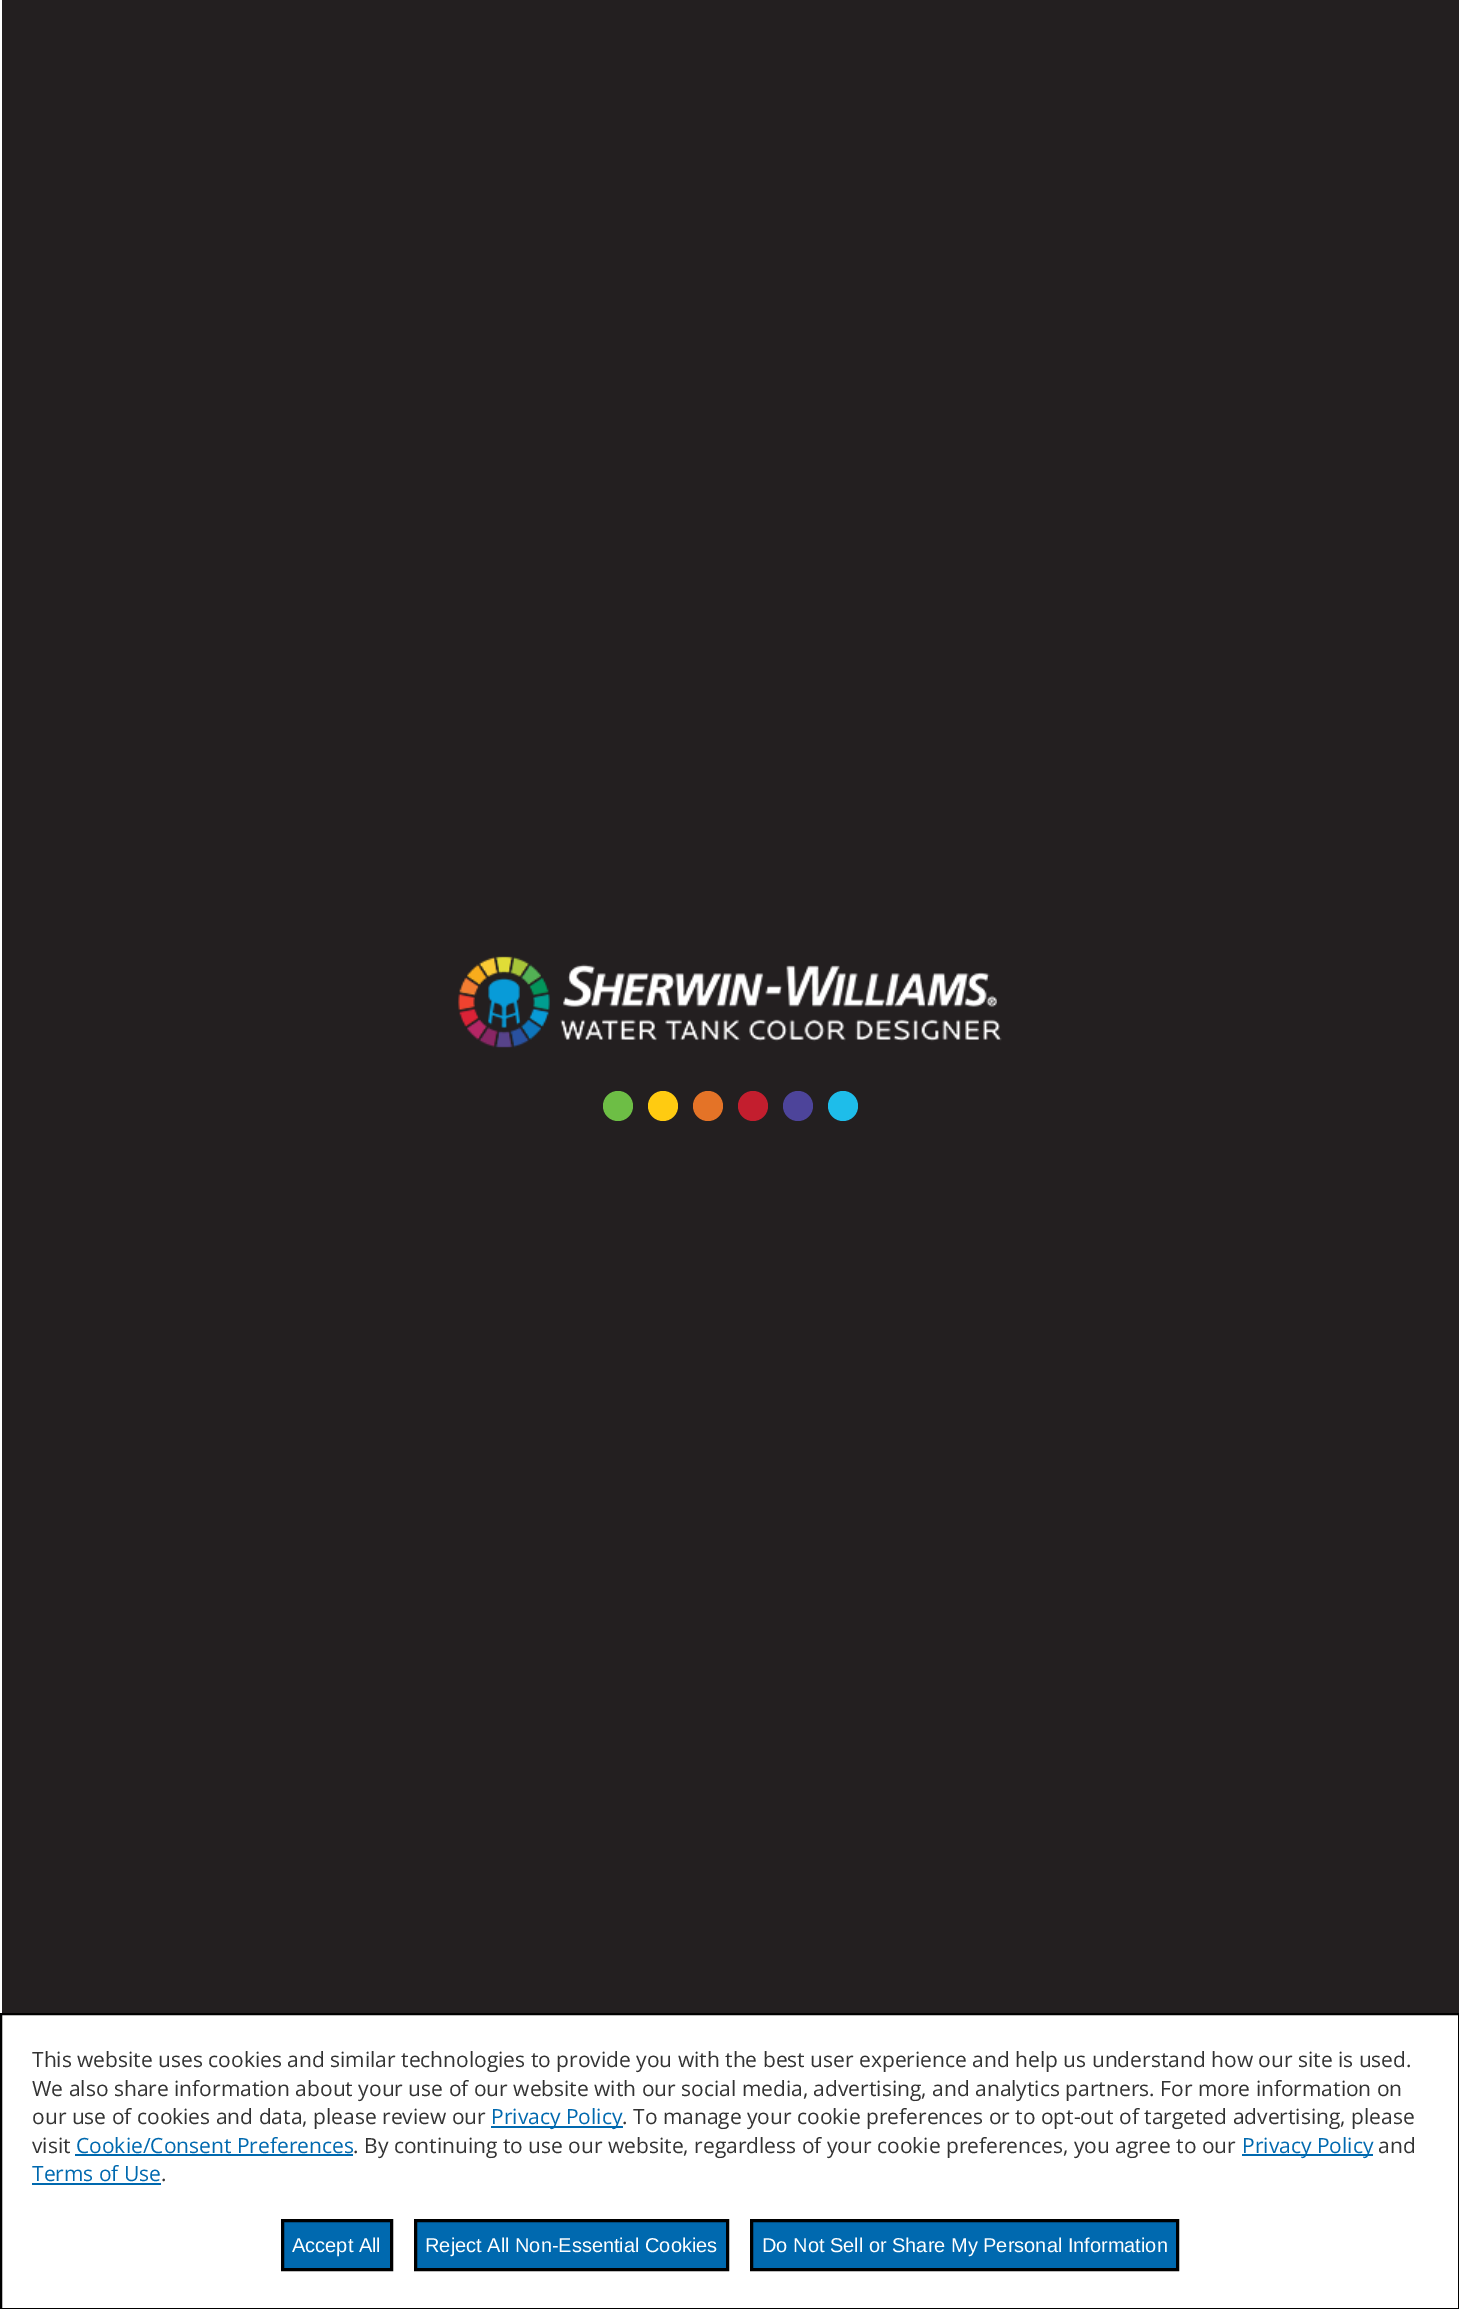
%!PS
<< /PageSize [1459 2309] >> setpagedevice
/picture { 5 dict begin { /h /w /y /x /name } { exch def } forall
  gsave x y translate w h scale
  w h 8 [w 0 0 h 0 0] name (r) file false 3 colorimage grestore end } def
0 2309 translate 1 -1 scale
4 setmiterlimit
1 setgray
0 0 1459 2309 rectfill
0.137 0.122 0.125 setrgbcolor
2 0 1457 2013 rectfill
(img1.rgb) 458 956 544 92 picture
0.427 0.745 0.271 setrgbcolor
newpath 618 1106 15 0 360 arc closepath fill
1 0.796 0.067 setrgbcolor
newpath 663 1106 15 0 360 arc closepath fill
0.894 0.451 0.153 setrgbcolor
newpath 708 1106 15 0 360 arc closepath fill
0.765 0.118 0.18 setrgbcolor
newpath 753 1106 15 0 360 arc closepath fill
0.302 0.267 0.604 setrgbcolor
newpath 798 1106 15 0 360 arc closepath fill
0.118 0.741 0.918 setrgbcolor
newpath 843 1106 15 0 360 arc closepath fill
0 setgray
2 setlinewidth
1 2014 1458 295 rectstroke
/OpenSans-Regular [21 0 0 -21 0 0] selectfont
0.2 setgray
32 2067 moveto (This website uses cookies and similar technologies to provide you with the best user experience and help us understand how our site is used.) show
32 2096 moveto (We also share information about your use of our website with our social media, advertising, and analytics partners. For more information on) show
32 2124 moveto (our use of cookies and data, please review our) show
0 0.412 0.686 setrgbcolor
491 2126 132 2 rectfill
491 2124 moveto (Privacy Policy) show
0.2 setgray
622 2124 moveto (. To manage your cookie preferences or to opt-out of targeted advertising, please) show
32 2153 moveto (visit) show
0 0.412 0.686 setrgbcolor
76 2153 moveto (Cookie/Consent Preferences) show
75 2154 278 2 rectfill
0.2 setgray
353 2153 moveto (. By continuing to use our website, regardless of your cookie preferences, you agree to our) show
0 0.412 0.686 setrgbcolor
1242 2154 131 2 rectfill
1242 2153 moveto (Privacy Policy) show
0.2 setgray
1378 2153 moveto (and) show
0 0.412 0.686 setrgbcolor
32 2181 moveto (Terms of Use) show
32 2183 129 2 rectfill
0.2 setgray
161 2181 moveto (.) show
0 0.412 0.686 setrgbcolor
newpath 282.5 2220.5 moveto 391.5 2220.5 lineto 391.5 2269.5 lineto 282.5 2269.5 lineto closepath gsave fill grestore
0 setgray
3 setlinewidth
stroke
/LiberationSans-Regular [20 0 0 -20 0 0] selectfont
1 setgray
292 2252 moveto (Accept All) show
0 0.412 0.686 setrgbcolor
newpath 415.5 2220.5 moveto 727.5 2220.5 lineto 727.5 2269.5 lineto 415.5 2269.5 lineto closepath gsave fill grestore
0 setgray
stroke
1 setgray
425 2252 moveto (Reject All Non-Essential Cookies) show
0 0.412 0.686 setrgbcolor
newpath 751.5 2220.5 moveto 1177.5 2220.5 lineto 1177.5 2269.5 lineto 751.5 2269.5 lineto closepath gsave fill grestore
0 setgray
stroke
1 setgray
762 2252 moveto (Do Not Sell or Share My Personal Information) show
showpage
